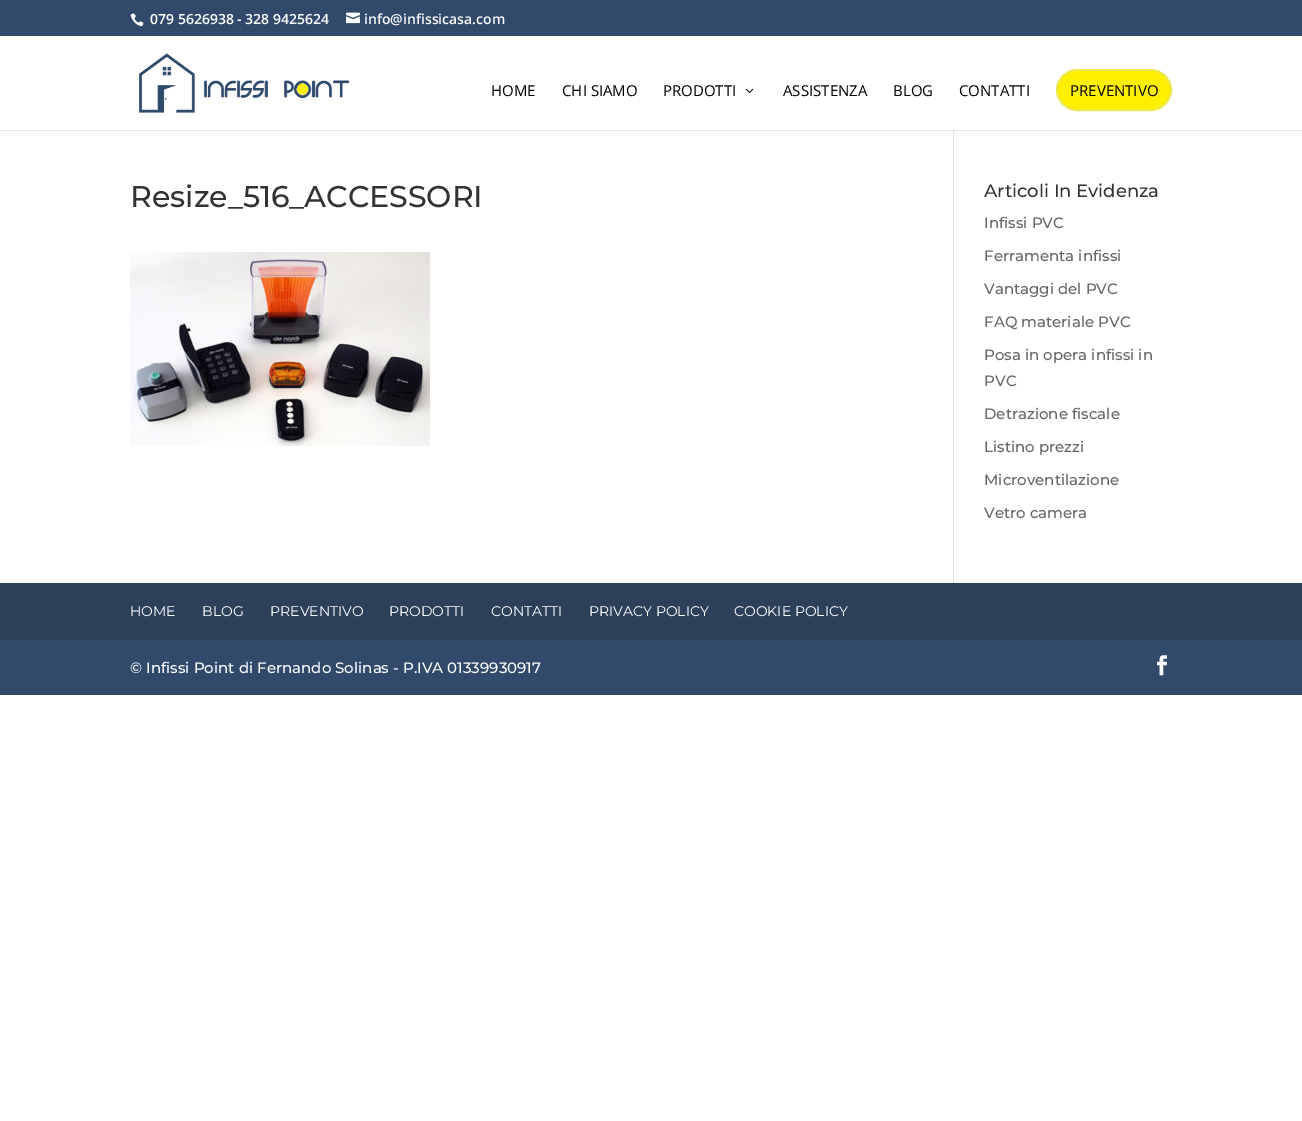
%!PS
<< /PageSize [1302 1121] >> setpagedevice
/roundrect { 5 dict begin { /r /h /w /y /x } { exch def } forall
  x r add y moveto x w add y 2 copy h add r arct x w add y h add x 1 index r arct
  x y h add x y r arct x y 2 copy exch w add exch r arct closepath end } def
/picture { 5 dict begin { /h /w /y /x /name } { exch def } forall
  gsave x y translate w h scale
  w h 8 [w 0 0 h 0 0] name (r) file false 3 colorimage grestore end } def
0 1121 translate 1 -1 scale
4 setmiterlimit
1 setgray
0 0 1302 1121 rectfill
0.902 setgray
0 130 1302 1 rectfill
0.192 0.29 0.424 setrgbcolor
0 0 1302 36 rectfill
(img1.rgb) 130 13 14 14 picture
/OpenSans-SemiBold [14 0 0 -14 0 0] selectfont
1 setgray
150 24 moveto (079 5626938 - 328 9425624) show
(img2.rgb) 346 12 14 12 picture
364 24 moveto (info@infissicasa.com) show
0.886 setgray
953 124 1 459 rectfill
1 setgray
953 124 1 6 rectfill
(img3.rgb) 138 53 212 60 picture
/OpenSans-Regular [15 0 0 -15 0 0] selectfont
0 setgray
491 96 moveto (HOME) show
562 96 moveto (CHI SIAMO) show
663 96 moveto (PRODOTTI) show
(img4.rgb) 745 88 9 5 picture
783 96 moveto (ASSISTENZA) show
893 96 moveto (BLOG) show
959 96 moveto (CONTATTI) show
1 0.937 0 setrgbcolor
1057 70 114 40 20 roundrect gsave fill grestore
0.929 0.91 0.298 setrgbcolor
2 setlinewidth
stroke
0 setgray
1070 96 moveto (PREVENTIVO) show
0.796 setgray
953 130 1 1 rectfill
/Montserrat-Thin [30 0 0 -30 0 0] selectfont
0.2 setgray
130 207 moveto (Resize_516_ACCESSORI) show
(img5.rgb) 130 252 300 194 picture
/Montserrat-Thin [18 0 0 -18 0 0] selectfont
984 197 moveto (Articoli In Evidenza) show
/Montserrat-Thin [15 0 0 -15 0 0] selectfont
0.4 setgray
984 228 moveto (Infissi PVC) show
984 261 moveto (Ferramenta infissi) show
984 294 moveto (Vantaggi del PVC) show
984 327 moveto (FAQ materiale PVC) show
984 360 moveto (Posa in opera infissi in) show
984 386 moveto (PVC) show
984 419 moveto (Detrazione fiscale) show
984 452 moveto (Listino prezzi) show
984 485 moveto (Microventilazione) show
984 518 moveto (Vetro camera) show
0.176 0.251 0.353 setrgbcolor
0 583 1302 57 rectfill
/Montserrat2-Thin [14 0 0 -14 0 0] selectfont
1 setgray
130 616 moveto (HOME) show
202 616 moveto (BLOG) show
270 616 moveto (PREVENTIVO) show
389 616 moveto (PRODOTTI) show
491 616 moveto (CONTATTI) show
589 616 moveto (PRIVACY POLICY) show
734 616 moveto (COOKIE POLICY) show
0.192 0.286 0.42 setrgbcolor
0 640 1302 55 rectfill
/Montserrat-Thin [15 0 0 -15 0 0] selectfont
1 setgray
130 673 moveto (© Infissi Point di Fernando Solinas - P.IVA 01339930917) show
(img6.rgb) 1157 655 10 21 picture
showpage
